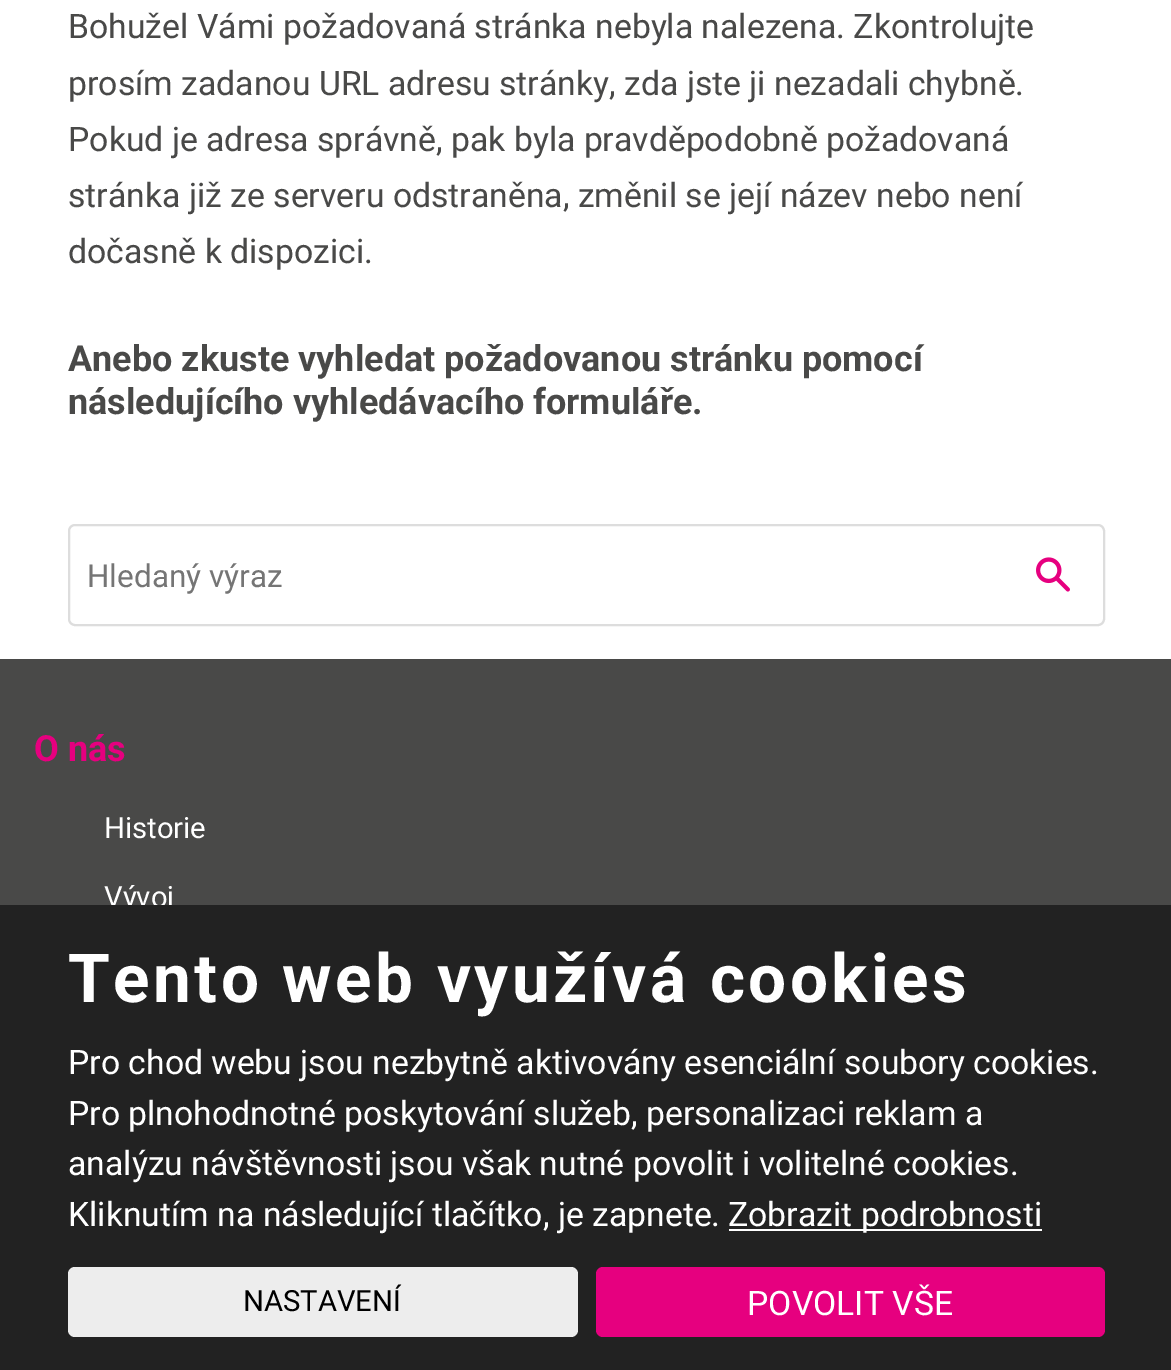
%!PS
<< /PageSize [1171 1370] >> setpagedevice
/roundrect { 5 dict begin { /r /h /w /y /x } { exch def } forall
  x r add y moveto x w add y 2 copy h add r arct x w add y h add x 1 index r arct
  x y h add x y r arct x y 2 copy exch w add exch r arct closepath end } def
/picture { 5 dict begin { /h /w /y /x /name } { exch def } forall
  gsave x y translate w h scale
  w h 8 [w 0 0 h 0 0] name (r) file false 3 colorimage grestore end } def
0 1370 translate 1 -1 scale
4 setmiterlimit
1 setgray
0 0 1171 1370 rectfill
/Roboto-Regular [33.75 0 0 -33.75 0 0] selectfont
0.286 0.286 0.282 setrgbcolor
68 38 moveto (Bohužel Vámi požadovaná stránka nebyla nalezena. Zkontrolujte) show
68 95 moveto (prosím zadanou URL adresu stránky, zda jste ji nezadali chybně.) show
68 151 moveto (Pokud je adresa správně, pak byla pravděpodobně požadovaná) show
68 207 moveto (stránka již ze serveru odstraněna, změnil se její název nebo není) show
68 263 moveto (dočasně k dispozici.) show
/Roboto-Bold [36 0 0 -36 0 0] selectfont
68 371 moveto (Anebo zkuste vyhledat požadovanou stránku pomocí) show
68 414 moveto (následujícího vyhledávacího formuláře.) show
0.867 setgray
2 setlinewidth
69 525 1035 100 6 roundrect stroke
/Roboto-Regular [31.5 0 0 -31.5 0 0] selectfont
0.459 setgray
87 587 moveto (Hledaný výraz) show
(img1.rgb) 1036 557 34 35 picture
0.286 0.286 0.282 setrgbcolor
0 659 1171 246 rectfill
/Roboto-Bold [36 0 0 -36 0 0] selectfont
0.902 0 0.498 setrgbcolor
34 761 moveto (O nás) show
/Roboto-Regular [29.25 0 0 -29.25 0 0] selectfont
1 setgray
104 838 moveto (Historie) show
104 907 moveto (Vývoj) show
0.133 setgray
0 905 1171 465 rectfill
/Roboto-Bold [67.5 0 0 -67.5 0 0] selectfont
1 setgray
68 1002 moveto 3.4 0 (Tento web využívá cookies) ashow
/Roboto-Regular [33.75 0 0 -33.75 0 0] selectfont
68 1074 moveto (Pro chod webu jsou nezbytně aktivovány esenciální soubory cookies.) show
68 1125 moveto (Pro plnohodnotné poskytování služeb, personalizaci reklam a) show
68 1175 moveto (analýzu návštěvnosti jsou však nutné povolit i volitelné cookies.) show
68 1226 moveto (Kliknutím na následující tlačítko, je zapnete.) show
729 1229 313 2 rectfill
728 1226 moveto (Zobrazit podrobnosti) show
0.929 setgray
68 1267 510 70 7 roundrect fill
/Roboto-Regular [29.25 0 0 -29.25 0 0] selectfont
0 setgray
243 1311 moveto (NASTAVENÍ) show
0.902 0 0.498 setrgbcolor
596 1267 509 70 7 roundrect fill
/Roboto-Regular [33.75 0 0 -33.75 0 0] selectfont
1 setgray
747 1315 moveto (POVOLIT VŠE) show
showpage
